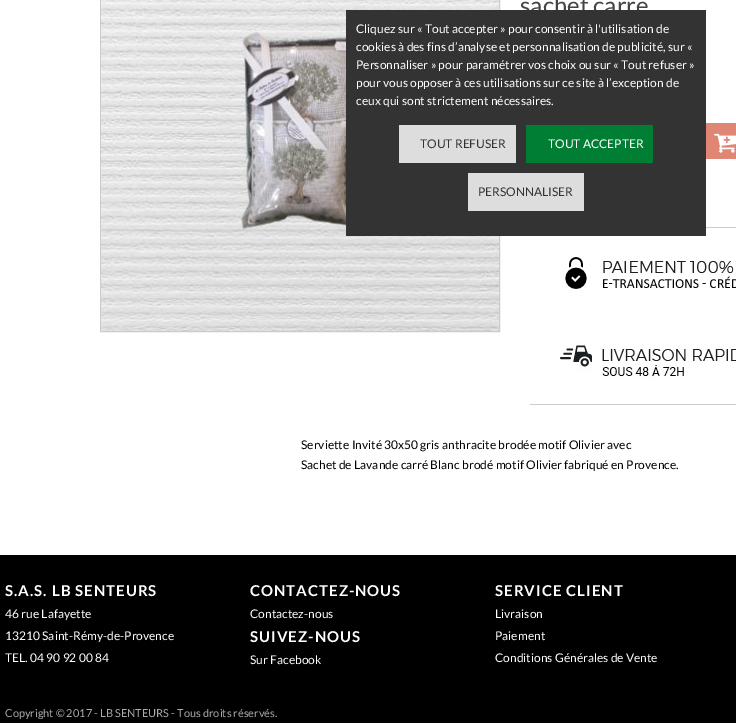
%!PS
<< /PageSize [736 724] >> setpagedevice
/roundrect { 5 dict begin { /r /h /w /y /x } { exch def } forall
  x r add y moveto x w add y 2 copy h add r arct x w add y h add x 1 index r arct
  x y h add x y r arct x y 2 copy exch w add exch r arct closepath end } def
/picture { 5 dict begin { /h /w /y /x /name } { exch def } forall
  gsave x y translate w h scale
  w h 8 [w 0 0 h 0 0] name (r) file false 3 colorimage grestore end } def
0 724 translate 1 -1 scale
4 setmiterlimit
1 setgray
0 0 736 724 rectfill
0.8 setgray
100.5 -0.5 399 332 rectstroke
(img1.rgb) 101 0 398 331 picture
/Lato-Regular [24 0 0 -24 0 0] selectfont
0.267 setgray
520 14 moveto (sachet carré) show
0.875 0.525 0.455 setrgbcolor
704 123 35 36 3 roundrect fill
(img2.rgb) 714 133 22 20 picture
0.8 setgray
706 227 30 1 rectfill
530 404 206 1 rectfill
(img3.rgb) 565 257 171 32 picture
(img4.rgb) 558 341 178 39 picture
/Lato-Regular [12 0 0 -12 0 0] selectfont
0 setgray
301 449 moveto (Serviette Invité 30x50 gris anthracite brodée motif Olivier avec) show
301 469 moveto (Sachet de Lavande carré Blanc brodé motif Olivier fabriqué en Provence.) show
0.2 setgray
346 10 360 226 rectfill
1 setgray
356 33 moveto (Cliquez sur « Tout accepter » pour consentir à l'utilisation de) show
356 51 moveto (cookies à des fins d’analyse et personnalisation de publicité, sur «) show
356 69 moveto (Personnaliser » pour paramétrer vos choix ou sur « Tout refuser ») show
356 87 moveto (pour vous opposer à ces utilisations sur ce site à l’exception de) show
356 105 moveto (ceux qui sont strictement nécessaires.) show
0.867 setgray
399 125 117 38 rectfill
0.2 setgray
420 148 moveto (TOUT REFUSER) show
0 0.494 0.2 setrgbcolor
526 125 127 38 rectfill
1 setgray
548 148 moveto (TOUT ACCEPTER) show
0.867 setgray
468 173 116 38 rectfill
0.2 setgray
478 196 moveto (PERSONNALISER) show
0 setgray
0 555 736 168 rectfill
/Lato-Bold [15 0 0 -15 0 0] selectfont
1 setgray
5 596 moveto 1 0 (S.A.S. LB SENTEURS) ashow
250 596 moveto 1 0 (CONTACTEZ-NOUS) ashow
495 596 moveto 1 0 (SERVICE CLIENT) ashow
/Lato-Regular [12 0 0 -12 0 0] selectfont
5 618 moveto (46 rue Lafayette) show
250 618 moveto (Contactez-nous) show
495 618 moveto (Livraison) show
5 640 moveto (13210 Saint-Rémy-de-Provence) show
/Lato-Bold [15 0 0 -15 0 0] selectfont
250 642 moveto 1 0 (SUIVEZ-NOUS) ashow
/Lato-Regular [12 0 0 -12 0 0] selectfont
495 640 moveto (Paiement) show
5 662 moveto (TEL. 04 90 92 00 84) show
250 664 moveto (Sur Facebook) show
495 662 moveto (Conditions Générales de Vente) show
/Lato-Regular [11 0 0 -11 0 0] selectfont
0.675 setgray
5 717 moveto (Copyright © 2017 - LB SENTEURS - Tous droits réservés.) show
showpage
